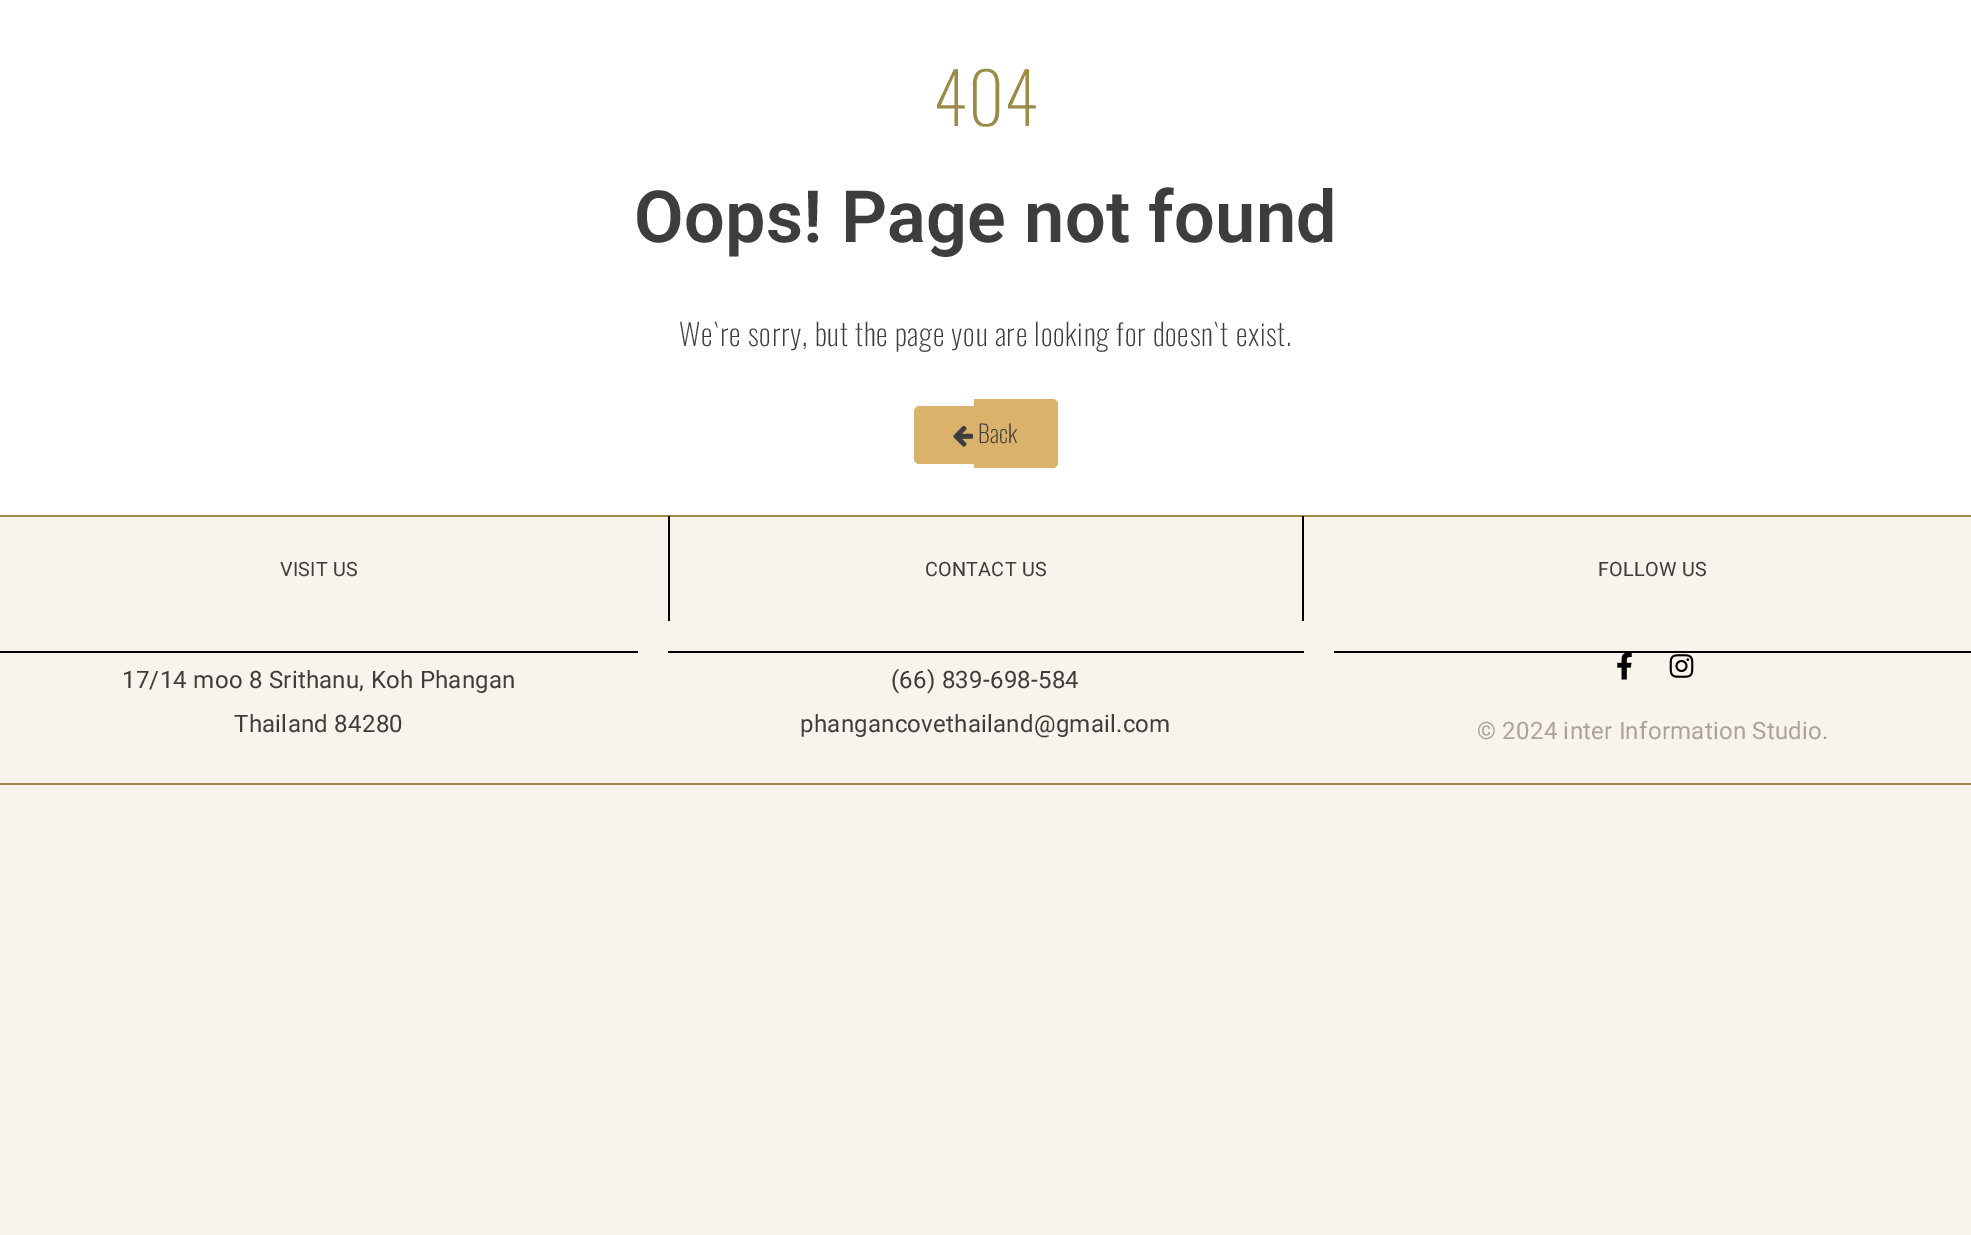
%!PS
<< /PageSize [1971 1235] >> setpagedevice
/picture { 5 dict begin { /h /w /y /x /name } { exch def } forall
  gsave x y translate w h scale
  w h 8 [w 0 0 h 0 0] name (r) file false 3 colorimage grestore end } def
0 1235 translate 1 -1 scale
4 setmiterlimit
0.973 0.953 0.922 setrgbcolor
0 0 1971 1235 rectfill
1 setgray
0 0 1971 515 rectfill
/Oswald-ExtraLight [70 0 0 -70 0 0] selectfont
0.612 0.545 0.278 setrgbcolor
933 126 moveto 0.25 0 (404) ashow
/Roboto-SemiBold [72 0 0 -72 0 0] selectfont
0.239 setgray
634 242 moveto 0.25 0 (Oops! Page not found) ashow
/Oswald-ExtraLight [30 0 0 -30 0 0] selectfont
679 346 moveto 0.75 0 (We`re sorry, but the page you are looking for doesn`t exist.) ashow
0.855 0.698 0.424 setrgbcolor
newpath 920 407 moveto 974 407 lineto 974 464 lineto 920 464 lineto 916.5 464 914 461.5 914 458 curveto 914 413 lineto 914 409.5 916.5 407 920 407 curveto closepath fill
newpath 920 406 moveto 974 406 lineto 974 464 lineto 920 464 lineto 916 464 914 461 914 458 curveto 914 412 lineto 914 409 916 406 920 406 curveto closepath 920 408 moveto 974 408 lineto 974 462 lineto 920 462 lineto 917 462 915 460 915 458 curveto 915 412 lineto 915 410 917 408 920 408 curveto closepath eofill
newpath 974 399 moveto 1052 399 lineto 1055.5 399 1058 401.5 1058 405 curveto 1058 462 lineto 1058 465.5 1055.5 468 1052 468 curveto 974 468 lineto closepath fill
newpath 974 399 moveto 1052 399 lineto 1055 399 1058 402 1058 405 curveto 1058 462 lineto 1058 465 1055 468 1052 468 curveto 974 468 lineto closepath 974 400 moveto 1052 400 lineto 1054 400 1056 403 1056 405 curveto 1056 462 lineto 1056 464 1054 466 1052 466 curveto 974 466 lineto closepath eofill
(img1.rgb) 953 425 21 22 picture
/Oswald-ExtraLight [24 0 0 -24 0 0] selectfont
0.239 setgray
978 443 moveto 0.25 0 (Back) ashow
0.612 0.545 0.278 setrgbcolor
0 515 1971 2 rectfill
0 783 1971 2 rectfill
/Roboto-Regular [19.75 0 0 -19.75 0 0] selectfont
0.239 setgray
280 576 moveto 0.25 0 (VISIT US) ashow
0 setgray
0 651 638 2 rectfill
/Roboto-Regular [24 0 0 -24 0 0] selectfont
0.239 setgray
122 688 moveto 0.25 0 (17/14 moo 8 Srithanu, Koh Phangan) ashow
234 732 moveto 0.25 0 (Thailand 84280) ashow
0 setgray
1302 516 2 105 rectfill
668 516 2 105 rectfill
/Roboto-Regular [19.75 0 0 -19.75 0 0] selectfont
0.239 setgray
925 576 moveto 0.25 0 (CONTACT US) ashow
0 setgray
668 651 636 2 rectfill
/Roboto-Regular [24 0 0 -24 0 0] selectfont
0.239 setgray
891 688 moveto 0.25 0 (\(66\) 839-698-584) ashow
800 732 moveto 0.25 0 (phangancovethailand@gmail.com) ashow
/Roboto-Regular [19.75 0 0 -19.75 0 0] selectfont
1598 576 moveto 0.25 0 (FOLLOW US) ashow
0 setgray
1334 651 637 2 rectfill
(img2.rgb) 1617 653 15 27 picture
(img3.rgb) 1669 654 25 24 picture
/Roboto-Regular [24 0 0 -24 0 0] selectfont
0.675 0.635 0.596 setrgbcolor
1477 739 moveto 0.25 0 (© 2024 inter Information Studio.) ashow
showpage
